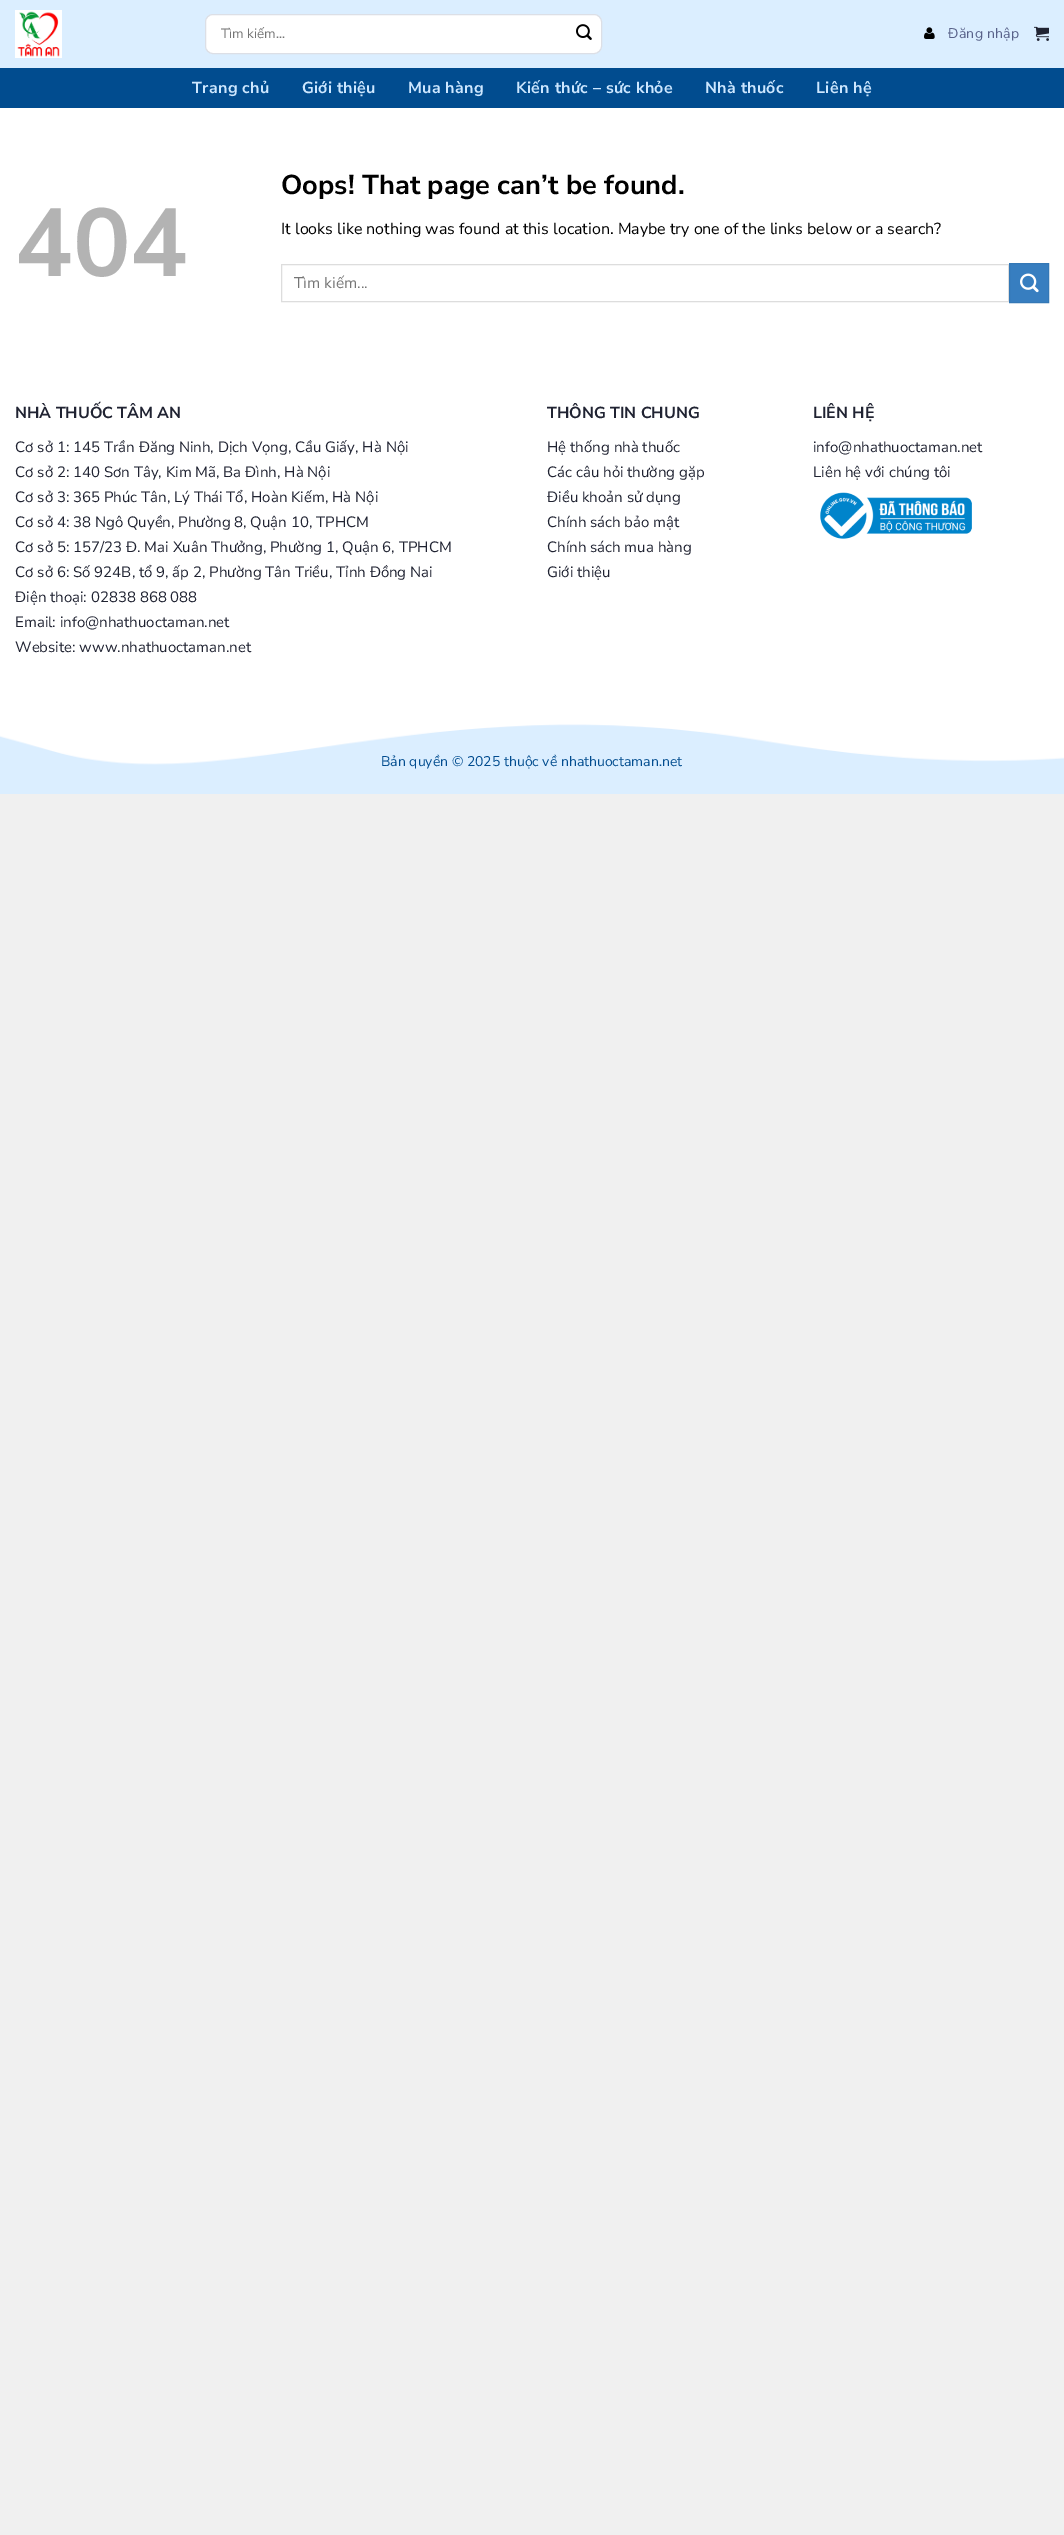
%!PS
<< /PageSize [1064 2535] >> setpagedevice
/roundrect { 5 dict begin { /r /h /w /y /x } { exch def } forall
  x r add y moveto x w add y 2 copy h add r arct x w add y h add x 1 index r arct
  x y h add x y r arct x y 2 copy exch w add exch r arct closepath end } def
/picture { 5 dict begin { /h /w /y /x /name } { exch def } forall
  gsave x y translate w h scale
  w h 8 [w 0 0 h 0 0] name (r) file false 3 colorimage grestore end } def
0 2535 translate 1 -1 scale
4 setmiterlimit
0.941 setgray
0 0 1064 2535 rectfill
1 setgray
0 108 1064 616 rectfill
0.859 0.933 1 setrgbcolor
0 0 1064 68 rectfill
(img1.rgb) 15 10 47 48 picture
1 setgray
205.5 14.5 396 39 7.5 roundrect gsave fill grestore
0.863 0.875 0.902 setrgbcolor
stroke
/NunitoSans-Regular [13.5 0 0 -13.5 0 0] selectfont
0.459 setgray
221 38 moveto (Tìm kiếm...) show
(img2.rgb) 576 24 16 16 picture
(img3.rgb) 924 27 11 12 picture
/NunitoSans-Regular [14 0 0 -14 0 0] selectfont
0.345 0.38 0.537 setrgbcolor
948 38 moveto 0.25 0 (Đăng nhập) ashow
(img4.rgb) 1034 26 15 15 picture
0.004 0.298 0.561 setrgbcolor
0 68 1064 40 rectfill
/NunitoSans-Bold [16 0 0 -16 0 0] selectfont
0.804 0.906 1 setrgbcolor
192 93 moveto 0.3 0 (Trang chủ) ashow
302 93 moveto 0.3 0 (Giới thiệu) ashow
408 93 moveto 0.3 0 (Mua hàng) ashow
516 93 moveto 0.3 0 (Kiến thức – sức khỏe) ashow
705 93 moveto 0.3 0 (Nhà thuốc) ashow
816 93 moveto 0.3 0 (Liên hệ) ashow
/NunitoSans-Bold [96 0 0 -96 0 0] selectfont
0.702 setgray
15 276 moveto (404) show
/NunitoSans-Bold [27.25 0 0 -27.25 0 0] selectfont
0 setgray
281 194 moveto (Oops! That page can’t be found.) show
/NunitoSans-Regular [16 0 0 -16 0 0] selectfont
281 234 moveto (It looks like nothing was found at this location. Maybe try one of the links below or a search?) show
0.867 setgray
281.5 264.5 727 37 rectstroke
/NunitoSans-Regular [15.5 0 0 -15.5 0 0] selectfont
0.459 setgray
294 288 moveto (Tìm kiếm...) show
0.216 0.494 0.753 setrgbcolor
newpath 1009.5 263.5 moveto 1048.5 263.5 lineto 1048.5 302.5 lineto 1009.5 302.5 lineto closepath gsave fill grestore
0.204 0.471 0.714 setrgbcolor
stroke
(img5.rgb) 1020 273 19 20 picture
/NunitoSans-Bold [16 0 0 -16 0 0] selectfont
0.125 0.137 0.196 setrgbcolor
15 418 moveto (NHÀ THUỐC TÂM AN) show
/NunitoSans-Regular [15 0 0 -15 0 0] selectfont
15 452 moveto (Cơ sở 1: 145 Trần Đăng Ninh, Dịch Vọng, Cầu Giấy, Hà Nội) show
15 477 moveto (Cơ sở 2: 140 Sơn Tây, Kim Mã, Ba Đình, Hà Nội) show
15 502 moveto (Cơ sở 3: 365 Phúc Tân, Lý Thái Tổ, Hoàn Kiếm, Hà Nội) show
15 527 moveto (Cơ sở 4: 38 Ngô Quyền, Phường 8, Quận 10, TPHCM) show
15 552 moveto (Cơ sở 5: 157/23 Đ. Mai Xuân Thưởng, Phường 1, Quận 6, TPHCM) show
15 577 moveto (Cơ sở 6: Số 924B, tổ 9, ấp 2, Phường Tân Triều, Tỉnh Đồng Nai) show
15 602 moveto (Điện thoại: 02838 868 088) show
15 627 moveto (Email: info@nhathuoctaman.net) show
15 652 moveto (Website: www.nhathuoctaman.net) show
/NunitoSans-Bold [16 0 0 -16 0 0] selectfont
547 418 moveto (THÔNG TIN CHUNG) show
/NunitoSans-Regular [15 0 0 -15 0 0] selectfont
547 452 moveto (Hệ thống nhà thuốc) show
547 477 moveto (Các câu hỏi thường gặp) show
547 502 moveto (Điều khoản sử dụng) show
547 527 moveto (Chính sách bảo mật) show
547 552 moveto (Chính sách mua hàng) show
547 577 moveto (Giới thiệu) show
/NunitoSans-Bold [16 0 0 -16 0 0] selectfont
813 418 moveto (LIÊN HỆ) show
/NunitoSans-Regular [15 0 0 -15 0 0] selectfont
813 452 moveto (info@nhathuoctaman.net) show
813 477 moveto (Liên hệ với chúng tôi) show
(img6.rgb) 820 492 152 47 picture
(img7.rgb) 0 724 1064 70 picture
/NunitoSans-Regular [14 0 0 -14 0 0] selectfont
0.004 0.298 0.561 setrgbcolor
381 766 moveto (Bản quyền © 2025 thuộc về nhathuoctaman.net) show
showpage
